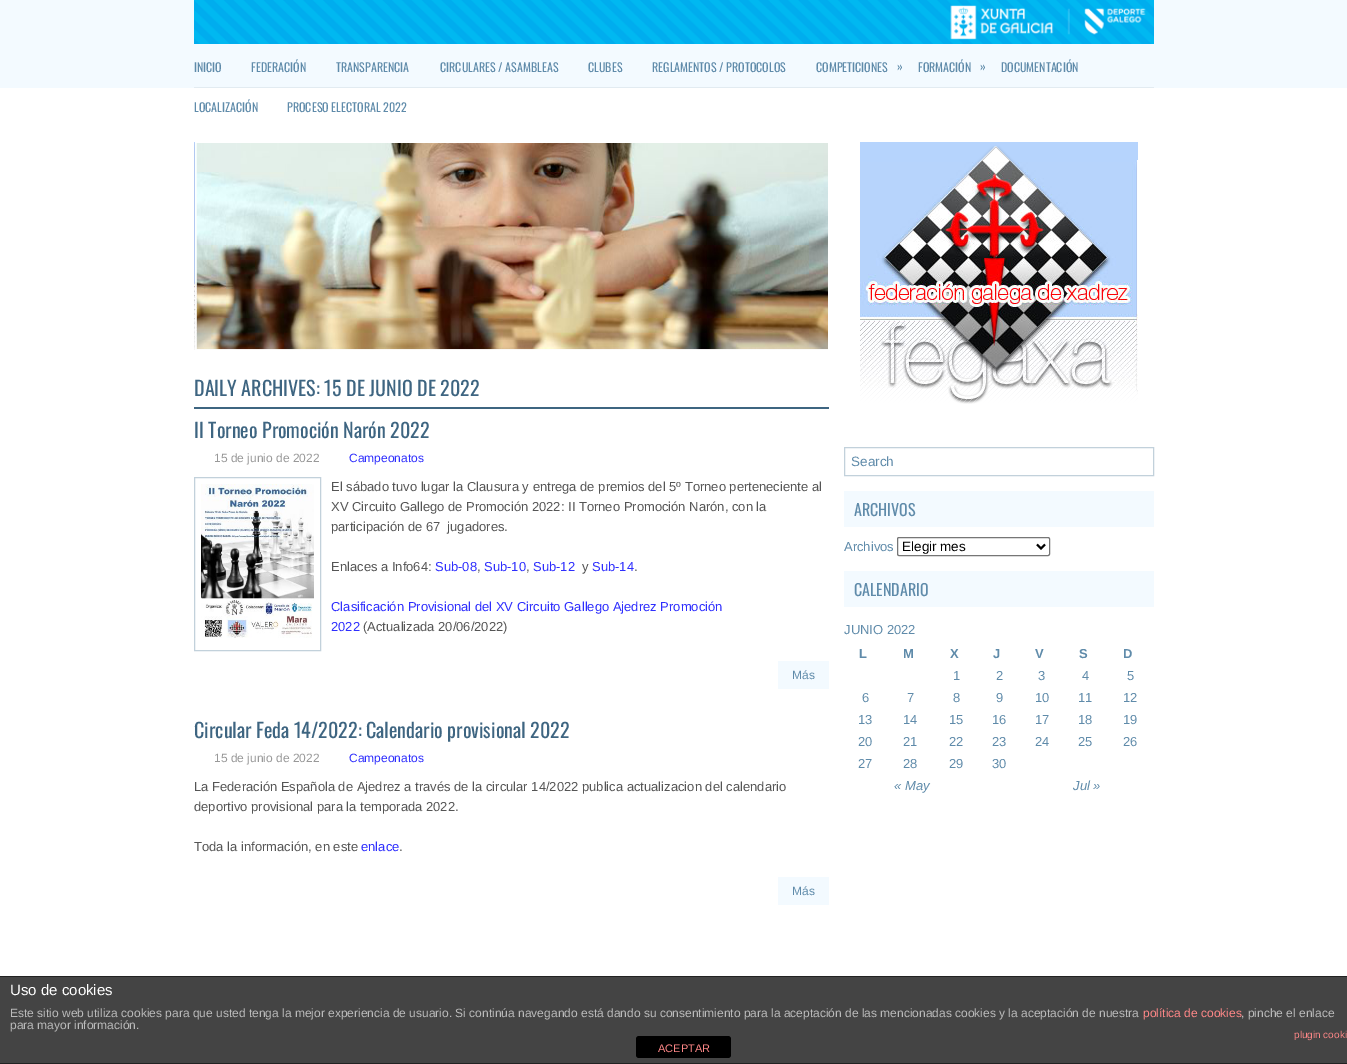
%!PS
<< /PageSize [1347 1064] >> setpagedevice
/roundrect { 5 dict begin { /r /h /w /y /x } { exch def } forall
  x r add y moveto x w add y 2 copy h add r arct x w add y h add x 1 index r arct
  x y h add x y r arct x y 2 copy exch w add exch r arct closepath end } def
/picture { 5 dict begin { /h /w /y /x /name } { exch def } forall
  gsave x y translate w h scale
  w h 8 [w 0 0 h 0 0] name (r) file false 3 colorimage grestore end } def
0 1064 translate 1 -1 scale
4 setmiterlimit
1 setgray
0 0 1347 1064 rectfill
0.953 0.98 1 setrgbcolor
0 0 1347 88 rectfill
(img1.rgb) 194 0 960 44 picture
0.886 0.922 0.945 setrgbcolor
194 87 960 1 rectfill
/Oswald-Regular [12 0 0 -12 0 0] selectfont
0.373 0.545 0.667 setrgbcolor
194 72 moveto (INICIO) show
251 72 moveto (FEDERACIÓN) show
336 72 moveto (TRANSPARENCIA) show
440 72 moveto (CIRCULARES / ASAMBLEAS) show
588 72 moveto (CLUBES) show
652 72 moveto (REGLAMENTOS / PROTOCOLOS) show
816 72 moveto (COMPETICIONES) show
897 71 moveto (») show
918 72 moveto (FORMACIÓN) show
980 71 moveto (») show
1001 72 moveto (DOCUMENTACIÓN) show
194 112 moveto (LOCALIZACIÓN) show
287 112 moveto (PROCESO ELECTORAL 2022) show
(img2.rgb) 194 142 634 208 picture
0.243 0.396 0.506 setrgbcolor
194 407 635 2 rectfill
/Oswald-Regular [20 0 0 -20 0 0] selectfont
194 396 moveto (DAILY ARCHIVES: 15 DE JUNIO DE 2022) show
194 438 moveto (II Torneo Promoción Narón 2022) show
/LiberationSans-Regular [12 0 0 -12 0 0] selectfont
0.6 setgray
214 462 moveto (15 de junio de 2022) show
0.18 0.18 0.996 setrgbcolor
349 462 moveto (Campeonatos) show
0.761 0.82 0.859 setrgbcolor
194.5 477.5 126 173 rectstroke
(img3.rgb) 201 484 113 154 picture
/LiberationSans-Regular [13 0 0 -13 0 0] selectfont
0.333 setgray
331 491 moveto (El sábado tuvo lugar la Clausura y entrega de premios del 5º Torneo perteneciente al) show
331 511 moveto (XV Circuito Gallego de Promoción 2022: II Torneo Promoción Narón, con la) show
331 531 moveto (participación de 67  jugadores.) show
331 571 moveto (Enlaces a Info64:) show
0.18 0.18 0.996 setrgbcolor
435 571 moveto (Sub-08) show
0.333 setgray
477 571 moveto (,) show
0.18 0.18 0.996 setrgbcolor
484 571 moveto (Sub-10) show
0.333 setgray
526 571 moveto (,) show
0.18 0.18 0.996 setrgbcolor
533 571 moveto (Sub-12) show
0.333 setgray
582 571 moveto (y) show
0.18 0.18 0.996 setrgbcolor
592 571 moveto (Sub-14) show
0.333 setgray
634 571 moveto (.) show
0.18 0.18 0.996 setrgbcolor
331 611 moveto (Clasificación Provisional del XV Circuito Gallego Ajedrez Promoción) show
331 631 moveto (2022) show
0.333 setgray
363 631 moveto (\(Actualizada 20/06/2022\)) show
0.953 0.98 1 setrgbcolor
778 661 51 28 rectfill
/LiberationSans-Regular [12 0 0 -12 0 0] selectfont
0.373 0.545 0.667 setrgbcolor
792 679 moveto (Más) show
/Oswald-Regular [20 0 0 -20 0 0] selectfont
0.243 0.396 0.506 setrgbcolor
194 738 moveto (Circular Feda 14/2022: Calendario provisional 2022) show
/LiberationSans-Regular [12 0 0 -12 0 0] selectfont
0.6 setgray
214 762 moveto (15 de junio de 2022) show
0.18 0.18 0.996 setrgbcolor
349 762 moveto (Campeonatos) show
/LiberationSans-Regular [13 0 0 -13 0 0] selectfont
0.333 setgray
194 791 moveto (La Federación Española de Ajedrez a través de la circular 14/2022 publica actualizacion del calendario) show
194 811 moveto (deportivo provisional para la temporada 2022.) show
194 851 moveto (Toda la información, en este) show
0.18 0.18 0.996 setrgbcolor
361 851 moveto (enlace) show
0.333 setgray
399 851 moveto (.) show
0.953 0.98 1 setrgbcolor
778 877 51 28 rectfill
/LiberationSans-Regular [12 0 0 -12 0 0] selectfont
0.373 0.545 0.667 setrgbcolor
792 895 moveto (Más) show
(img4.rgb) 860 142 278 262 picture
0.761 0.82 0.859 setrgbcolor
844.5 447.5 309 28 rectstroke
/LiberationSans-Regular [13.5 0 0 -13.5 0 0] selectfont
0.373 0.545 0.667 setrgbcolor
851 466 moveto (Search) show
0.953 0.98 1 setrgbcolor
844 491 310 36 rectfill
/Oswald-Regular [16 0 0 -16 0 0] selectfont
0.373 0.545 0.667 setrgbcolor
854 516 moveto (ARCHIVOS) show
/LiberationSans-Regular [13 0 0 -13 0 0] selectfont
844 551 moveto (Archivos) show
0.463 setgray
897.5 537.5 152 18 1.5 roundrect stroke
0 setgray
2 setlinewidth
newpath 1037 544.5 moveto 1041 548.5 lineto 1045 544.5 lineto stroke
/LiberationSans-Regular [13.5 0 0 -13.5 0 0] selectfont
902 551 moveto (Elegir mes) show
0.953 0.98 1 setrgbcolor
844 571 310 36 rectfill
/Oswald-Regular [16 0 0 -16 0 0] selectfont
0.373 0.545 0.667 setrgbcolor
854 596 moveto (CALENDARIO) show
/LiberationSans-Regular [13 0 0 -13 0 0] selectfont
844 634 moveto (JUNIO 2022) show
/LiberationSans-Bold [13 0 0 -13 0 0] selectfont
859 658 moveto (L) show
903 658 moveto (M) show
950 658 moveto (X) show
993 658 moveto (J) show
1035 658 moveto (V) show
1079 658 moveto (S) show
1123 658 moveto (D) show
/LiberationSans-Regular [13 0 0 -13 0 0] selectfont
953 680 moveto (1) show
996 680 moveto (2) show
1038 680 moveto (3) show
1082 680 moveto (4) show
1127 680 moveto (5) show
862 702 moveto (6) show
907 702 moveto (7) show
953 702 moveto (8) show
996 702 moveto (9) show
1035 702 moveto (10) show
1078 702 moveto (11) show
1123 702 moveto (12) show
858 724 moveto (13) show
903 724 moveto (14) show
949 724 moveto (15) show
992 724 moveto (16) show
1035 724 moveto (17) show
1078 724 moveto (18) show
1123 724 moveto (19) show
858 746 moveto (20) show
903 746 moveto (21) show
949 746 moveto (22) show
992 746 moveto (23) show
1035 746 moveto (24) show
1078 746 moveto (25) show
1123 746 moveto (26) show
858 768 moveto (27) show
903 768 moveto (28) show
949 768 moveto (29) show
992 768 moveto (30) show
/LiberationSans-Italic [13 0 0 -13 0 0] selectfont
894 790 moveto (« May) show
1073 790 moveto (Jul ») show
0.267 setgray
0 977 1347 86 rectfill
0.133 setgray
0 976 1347 1 rectfill
0 1063 1347 1 rectfill
/LiberationSans-Regular [15 0 0 -15 0 0] selectfont
1 setgray
10 995 moveto (Uso de cookies) show
/LiberationSans-Regular [12 0 0 -12 0 0] selectfont
0.733 setgray
10 1017 moveto (Este sitio web utiliza cookies para que usted tenga la mejor experiencia de usuario. Si continúa navegando está dando su consentimiento para la aceptación de las mencionadas cookies y la aceptación de nuestra) show
1 0.533 0.533 setrgbcolor
1143 1017 moveto (política de cookies) show
0.733 setgray
1241 1017 moveto (, pinche el enlace) show
10 1029 moveto (para mayor información.) show
/LiberationSans-Regular [10 0 0 -10 0 0] selectfont
1 0.533 0.533 setrgbcolor
1294 1038 moveto (plugin cooki) show
0 setgray
636 1036 95 22 3 roundrect fill
/LiberationSans-Regular [11 0 0 -11 0 0] selectfont
1 0.533 0.533 setrgbcolor
658 1052 moveto (ACEPTAR) show
showpage
